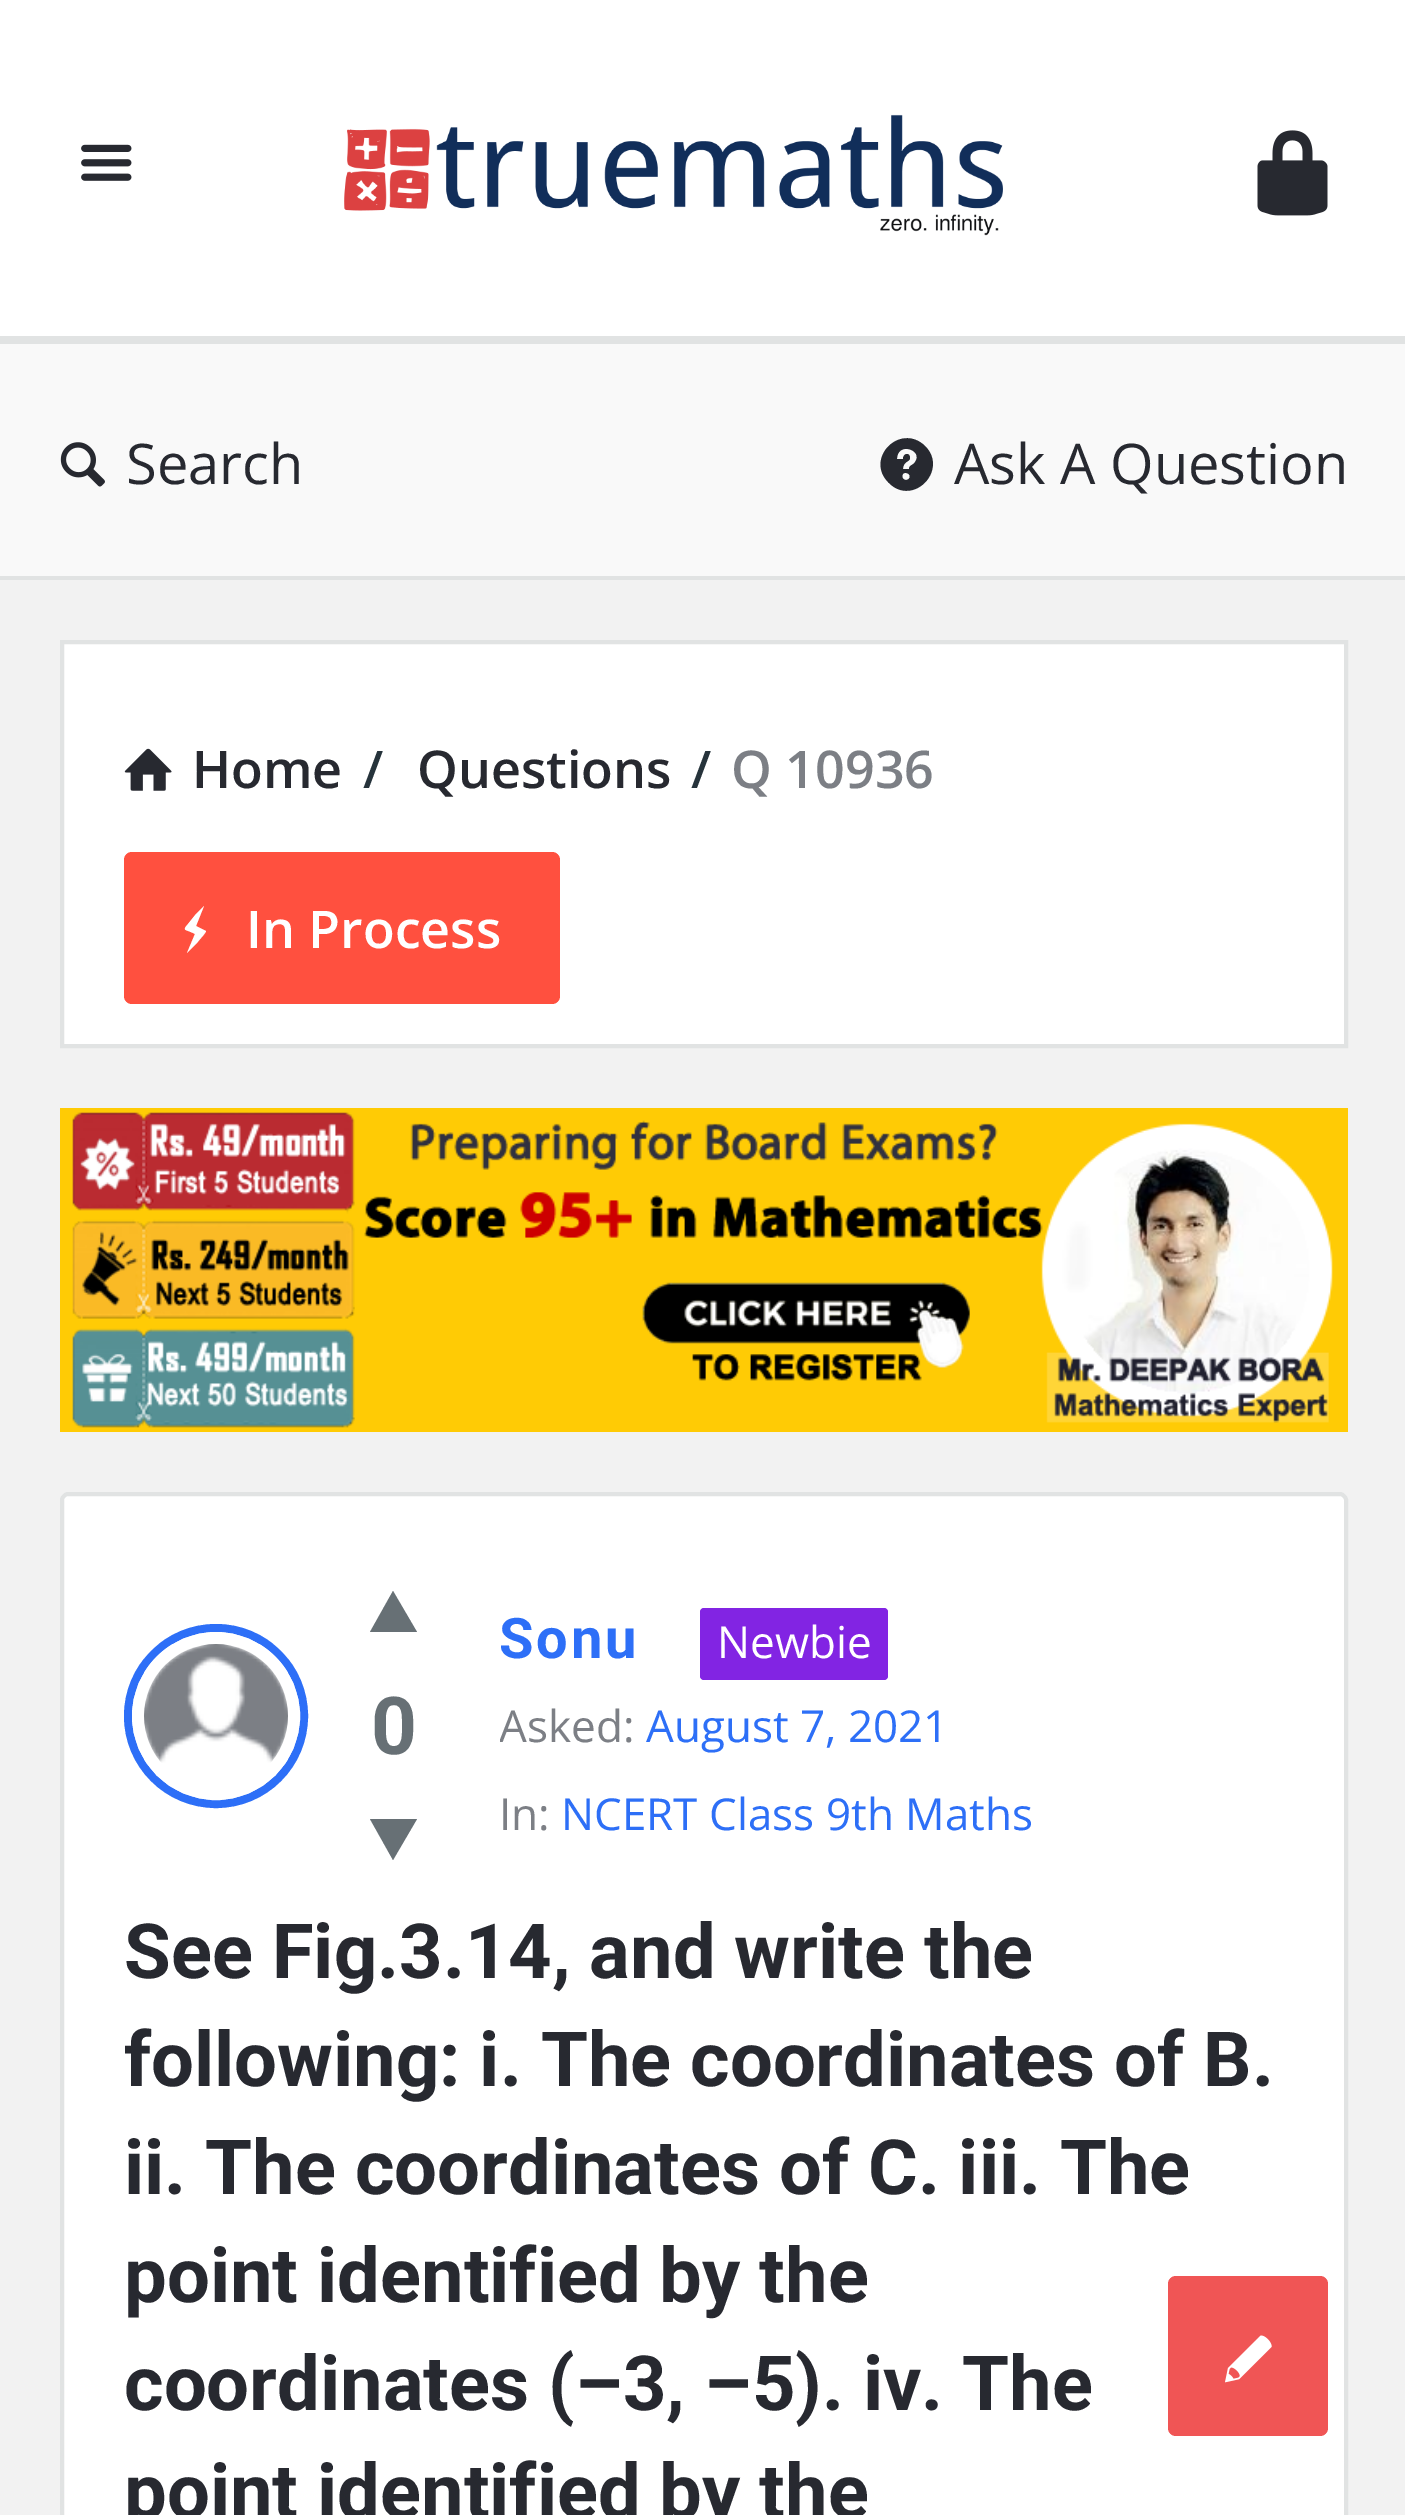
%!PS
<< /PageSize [1405 2515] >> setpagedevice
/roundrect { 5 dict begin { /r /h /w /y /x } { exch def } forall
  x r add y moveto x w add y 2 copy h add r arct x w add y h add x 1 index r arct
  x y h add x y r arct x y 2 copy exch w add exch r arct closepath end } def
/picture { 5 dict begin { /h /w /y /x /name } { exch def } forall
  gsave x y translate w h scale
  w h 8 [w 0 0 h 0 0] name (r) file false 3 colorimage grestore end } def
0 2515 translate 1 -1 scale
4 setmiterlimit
0.949 setgray
0 0 1405 2515 rectfill
1 setgray
0 0 1405 336 rectfill
0.882 0.89 0.89 setrgbcolor
0 336 1405 8 rectfill
(img1.rgb) 81 144 51 37 picture
(img2.rgb) 344 114 659 122 picture
(img3.rgb) 1257 130 71 86 picture
0.976 setgray
0 344 1405 232 rectfill
0.882 0.89 0.89 setrgbcolor
0 576 1405 4 rectfill
(img4.rgb) 60 442 45 45 picture
/OpenSans-Regular [56 0 0 -56 0 0] selectfont
0.153 0.161 0.188 setrgbcolor
126 484 moveto (Search) show
newpath 925 446 moveto 949 470 913 507 889 483 curveto 864 459 900 422 925 446 curveto closepath 906 480 moveto 911 480 911 473 906 473 curveto 901 472 901 480 906 480 curveto closepath 915 462 moveto 924 450 897 441 897 459 curveto 903 459 lineto 903 453 910 452 910 458 curveto 910 462 903 461 903 469 curveto 909 469 lineto 909 465 914 465 915 462 curveto closepath fill
954 484 moveto (Ask A Question) show
1 setgray
newpath 62 642 moveto 1346 642 lineto 1346 1046 lineto 62 1046 lineto closepath gsave fill grestore
0.882 0.89 0.89 setrgbcolor
4 setlinewidth
stroke
(img5.rgb) 124 748 48 43 picture
/OpenSans-SemiBold [52 0 0 -52 0 0] selectfont
0.153 0.161 0.188 setrgbcolor
192 788 moveto (Home) show
0.149 0.2 0.231 setrgbcolor
363 788 moveto (/) show
0.153 0.161 0.188 setrgbcolor
417 788 moveto (Questions) show
0.149 0.2 0.231 setrgbcolor
691 788 moveto (/) show
0.486 0.498 0.522 setrgbcolor
731 788 moveto (Q 10936) show
1 0.314 0.247 setrgbcolor
124 852 436 152 8 roundrect fill
1 setgray
newpath 187 953 moveto 195 934 lineto 193 933 lineto 185 929 182 931 188 924 curveto 196 914 lineto 204 906 lineto 196 926 lineto 204 930 lineto 206 931 lineto 206 933 198 941 197 943 curveto closepath fill
246 948 moveto (In Process) show
(img6.rgb) 60 1108 1288 324 picture
60 1492 1288 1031 8 roundrect fill
0.882 0.89 0.89 setrgbcolor
newpath 64 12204 moveto 62.5 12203 62 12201.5 62 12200 curveto 62 1500 lineto 62 1498.5 62.5 1497 64 1496 curveto 65 1494.5 66.5 1494 68 1494 curveto 1340 1494 lineto 1341.5 1494 1343 1494.5 1344 1496 curveto 1345.5 1497 1346 1498.5 1346 1500 curveto 1346 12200 lineto 1346 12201.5 1345.5 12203 1344 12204 curveto stroke
/Roboto-Bold [56 0 0 -56 0 0] selectfont
0.176 0.435 0.969 setrgbcolor
499 1658 moveto 3 0 (Sonu) ashow
0.51 0.141 0.89 setrgbcolor
700 1608 188 72 4 roundrect fill
/OpenSans-Regular [44 0 0 -44 0 0] selectfont
1 setgray
717 1658 moveto (Newbie) show
gsave
500 1684 532 176 rectclip
0.486 0.498 0.522 setrgbcolor
499 1742 moveto (Asked:) show
grestore
0.176 0.435 0.969 setrgbcolor
646 1742 moveto (August 7, 2021) show
0.486 0.498 0.522 setrgbcolor
499 1830 moveto (In:) show
0.176 0.435 0.969 setrgbcolor
561 1830 moveto (NCERT Class 9th Maths) show
/Roboto-Bold [76 0 0 -76 0 0] selectfont
0.153 0.161 0.188 setrgbcolor
124 1978 moveto (See Fig.3.14, and write the) show
124 2086 moveto (following: i. The coordinates of B.) show
124 2194 moveto (ii. The coordinates of C. iii. The) show
124 2302 moveto (point identified by the) show
124 2410 moveto (coordinates \(–3, –5\). iv. The) show
124 2518 moveto (point identified by the) show
0.176 0.435 0.969 setrgbcolor
8 setlinewidth
newpath 216 1716 88 0 360 arc closepath stroke
1 setgray
12 setlinewidth
newpath 216 1716 78 0 360 arc closepath stroke
(img7.rgb) 144 1644 144 119 picture
0.404 0.439 0.459 setrgbcolor
newpath 370 1632 moveto 393 1591 lineto 417 1632 lineto closepath fill
/Roboto-Bold [80 0 0 -80 0 0] selectfont
371 1754 moveto (0) show
newpath 417 1819 moveto 393 1860 lineto 370 1819 lineto closepath fill
0.941 0.333 0.333 setrgbcolor
1168 2276 160 160 8 roundrect fill
(img8.rgb) 1225 2335 47 48 picture
showpage
